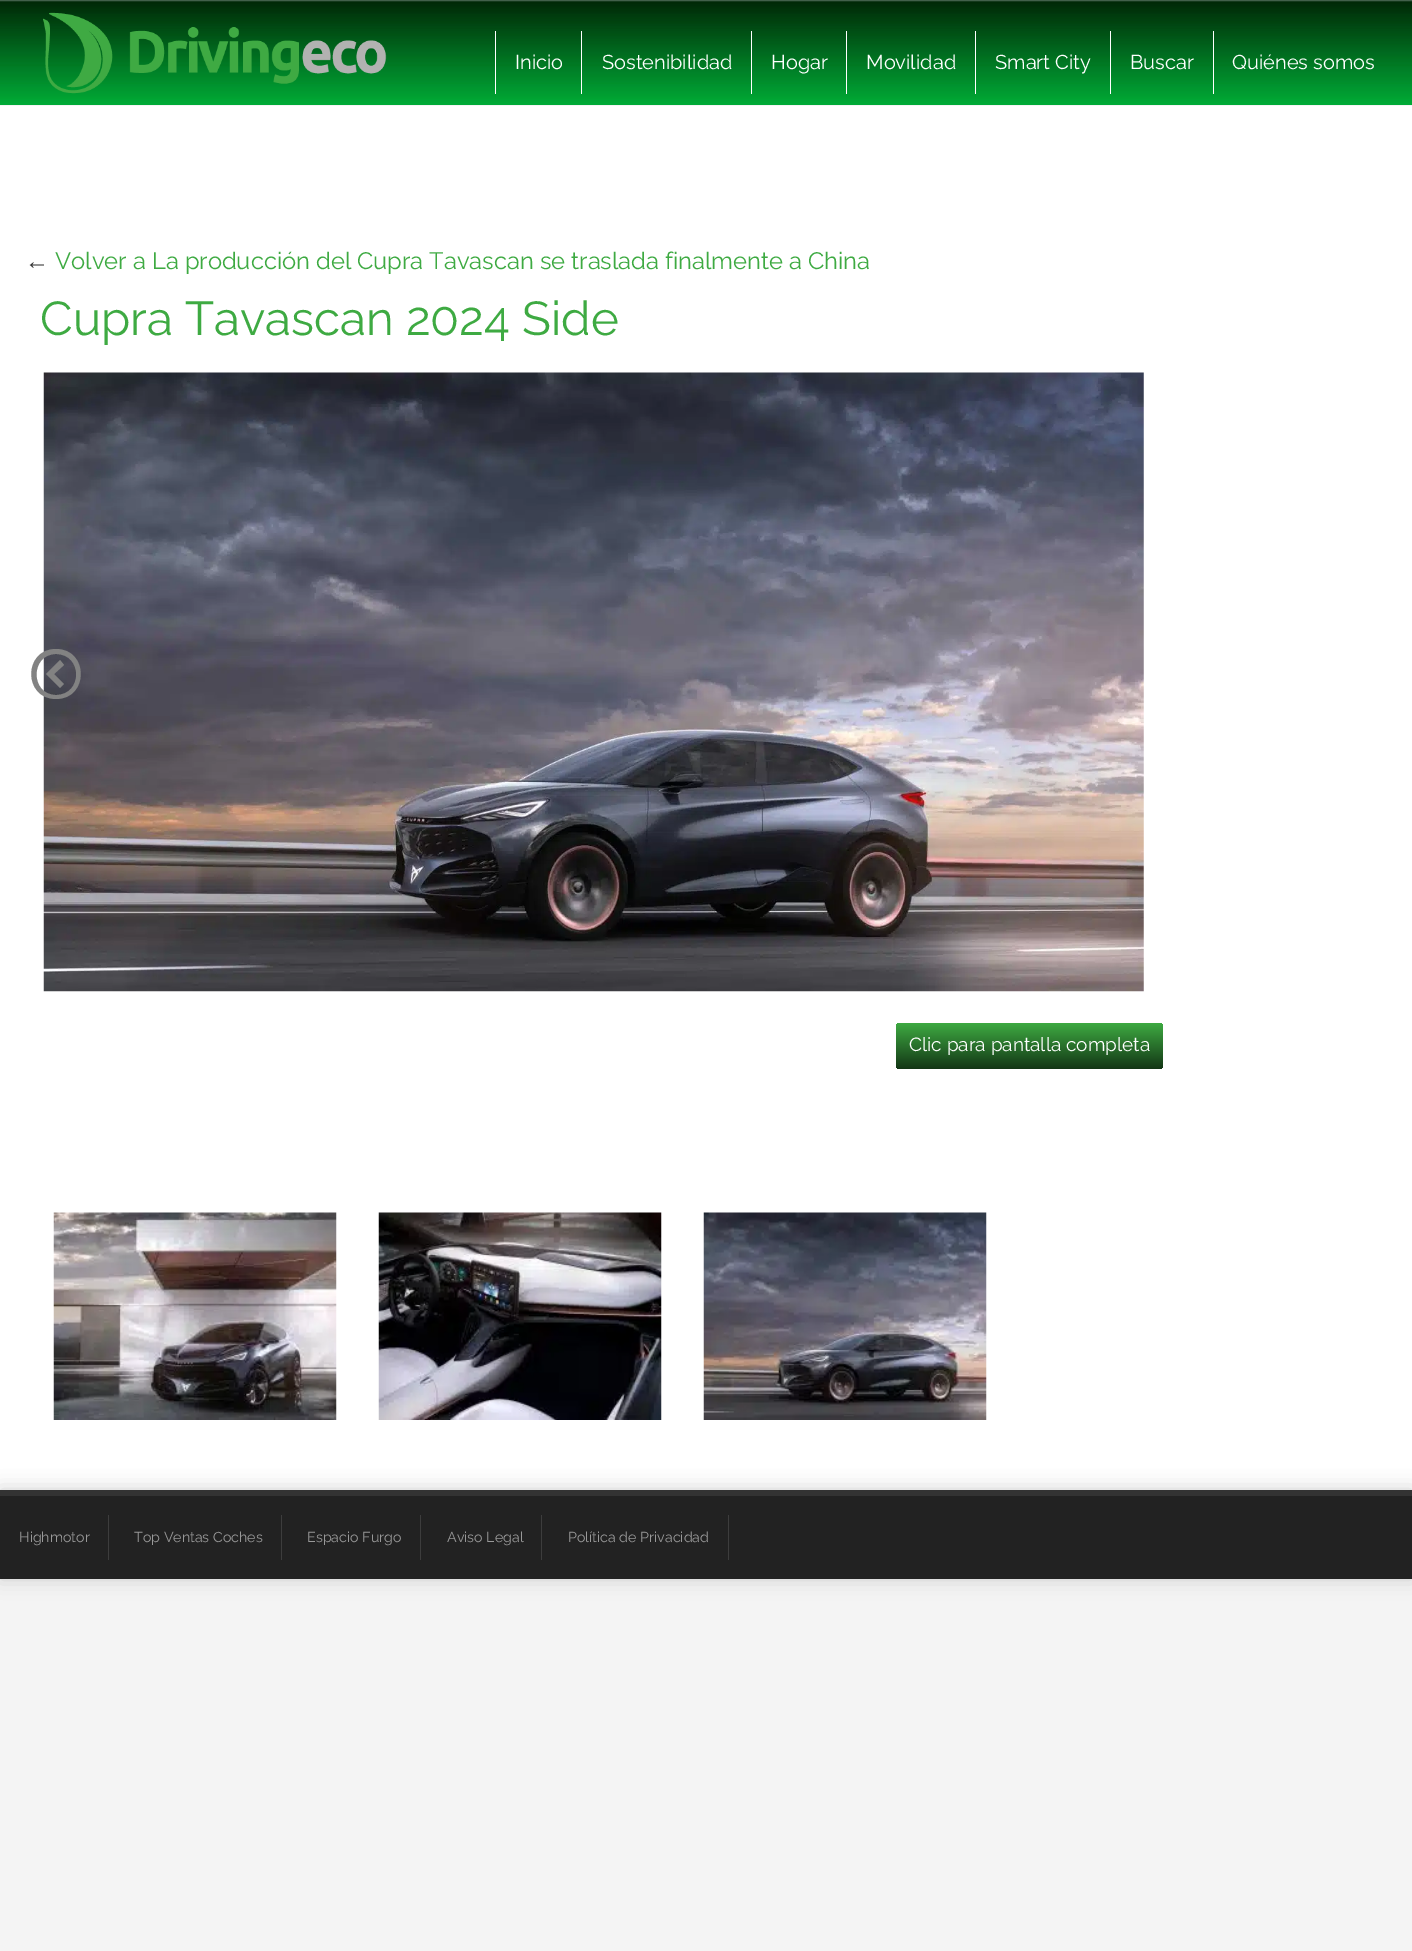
%!PS
<< /PageSize [1412 1951] /PageUsesTransparency true >> setpagedevice
/alpha { dup .setfillconstantalpha .setstrokeconstantalpha } def
/roundrect { 5 dict begin { /r /h /w /y /x } { exch def } forall
  x r add y moveto x w add y 2 copy h add r arct x w add y h add x 1 index r arct
  x y h add x y r arct x y 2 copy exch w add exch r arct closepath end } def
/shadow { 12 dict begin { /a /b /q /h /w /y /x } { exch def } forall gsave /was 0 def
  9 -2 -9 { dup b mul 4 div /e exch def 1 sub .425 mul 2.718 exch exp 1 add a .99 .min exch div /now exch def
    1 1 now sub 1 was sub div sub alpha /was now def
    w h .min e 2 mul add 0 gt { x e sub y e sub w e 2 mul add h e 2 mul add
      q e add b .6 mul add w h .min 2 div e add .min 0 .max roundrect fill } if } for grestore end } def
/picture { 5 dict begin { /h /w /y /x /name } { exch def } forall
  gsave x y translate w h scale
  w h 8 [w 0 0 h 0 0] name (r) file false 3 colorimage grestore end } def
0 .pushpdf14devicefilter
0 1951 translate 1 -1 scale
4 setmiterlimit
0.957 setgray
0 0 1412 1951 rectfill
(img1.rgb) 0 0 1412 105 picture
(img2.rgb) 43 12 344 82 picture
1 setgray
495 31 1 63 rectfill
/Raleway-Regular [20 0 0 -20 0 0] selectfont
515 69 moveto (Inicio) show
581 31 1 63 rectfill
602 69 moveto (Sostenibilidad) show
751 31 1 63 rectfill
771 69 moveto (Hogar) show
846 31 1 63 rectfill
866 69 moveto (Movilidad) show
975 31 1 63 rectfill
995 69 moveto (Smart City) show
1110 31 1 63 rectfill
1130 69 moveto (Buscar) show
1213 31 1 63 rectfill
1232 69 moveto (Quiénes somos) show
0 106 1412 1384 rectfill
/LiberationSans-Regular [23.75 0 0 -23.75 0 0] selectfont
0.2 setgray
25 269 moveto (←) show
/Raleway-Regular [23.75 0 0 -23.75 0 0] selectfont
0.243 0.667 0.259 setrgbcolor
55 269 moveto (Volver a La producción del Cupra Tavascan se traslada finalmente a China) show
/Raleway-Regular [47.5 0 0 -47.5 0 0] selectfont
40 335 moveto (Cupra Tavascan 2024 Side) show
(img3.rgb) 43 372 1101 620 picture
0.51 setgray
newpath 56 699 moveto 89 699 89 649 56 649 curveto 23 649 23 699 56 699 curveto closepath 56 654 moveto 83 654 83 695 56 695 curveto 30 695 30 654 56 654 curveto closepath 64 665 moveto 60 660 lineto 46 674 lineto 60 688 lineto 64 684 lineto 54 674 lineto closepath fill
gsave 896 1023 267 46 4 roundrect clip newpath
<< /ShadingType 2 /ColorSpace /DeviceRGB /Coords [1029 1023 1029 1069] /Extend [true true] /Function << /FunctionType 2 /Domain [0 1] /C0 [0.243 0.667 0.259] /C1 [0.075 0.212 0.082] /N 1 >> >> shfill grestore
/Raleway-Regular [19 0 0 -19 0 0] selectfont
1 setgray
909 1051 moveto (Clic para pantalla completa) show
(img4.rgb) 53 1212 284 208 picture
(img5.rgb) 378 1212 284 208 picture
(img6.rgb) 703 1212 284 208 picture
0.8 setgray
0 1490 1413 89 0 9.5 1 shadow
0.2 setgray
0 1490 1412 6 rectfill
0.133 setgray
0 1496 1412 83 rectfill
0.239 setgray
108 1515 1 45 rectfill
/Raleway-Regular [14.25 0 0 -14.25 0 0] selectfont
0.6 setgray
19 1542 moveto (Highmotor) show
0.239 setgray
281 1515 1 45 rectfill
0.6 setgray
134 1542 moveto (Top Ventas Coches) show
0.239 setgray
420 1515 1 45 rectfill
0.6 setgray
307 1542 moveto (Espacio Furgo) show
0.239 setgray
541 1515 1 45 rectfill
0.6 setgray
447 1542 moveto (Aviso Legal) show
0.239 setgray
728 1515 1 45 rectfill
0.6 setgray
568 1542 moveto (Política de Privacidad) show
.poppdf14devicefilter showpage
